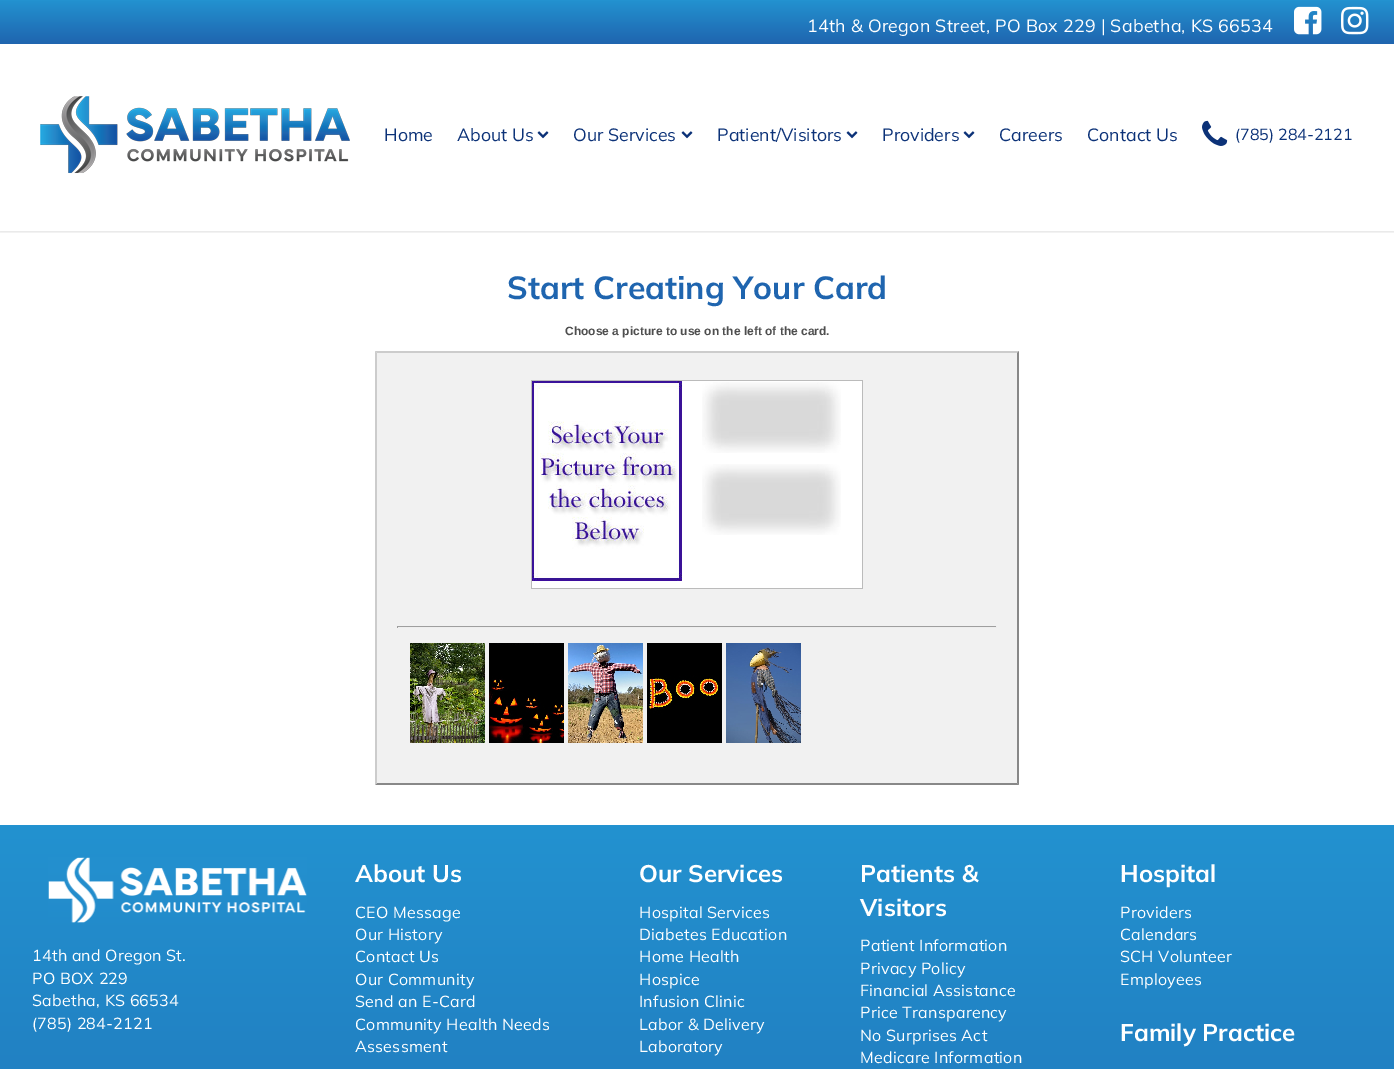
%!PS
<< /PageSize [1394 1069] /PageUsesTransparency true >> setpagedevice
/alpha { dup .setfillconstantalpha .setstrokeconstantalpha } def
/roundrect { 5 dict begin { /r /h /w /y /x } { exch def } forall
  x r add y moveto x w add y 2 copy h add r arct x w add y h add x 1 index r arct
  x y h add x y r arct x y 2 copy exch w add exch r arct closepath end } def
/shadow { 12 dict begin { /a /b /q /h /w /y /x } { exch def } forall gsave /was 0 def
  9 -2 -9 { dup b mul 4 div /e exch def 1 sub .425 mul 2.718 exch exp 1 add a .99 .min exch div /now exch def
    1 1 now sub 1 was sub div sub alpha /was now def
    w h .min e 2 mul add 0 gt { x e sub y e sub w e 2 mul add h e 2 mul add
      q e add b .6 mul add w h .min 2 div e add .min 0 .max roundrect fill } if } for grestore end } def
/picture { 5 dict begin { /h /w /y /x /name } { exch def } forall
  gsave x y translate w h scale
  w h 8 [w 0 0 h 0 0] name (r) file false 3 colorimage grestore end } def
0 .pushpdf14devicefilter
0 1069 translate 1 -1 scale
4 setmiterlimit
1 setgray
0 0 1394 1069 rectfill
gsave newpath 0 0 moveto 1394 0 lineto 1394 44 lineto 0 44 lineto closepath clip newpath
<< /ShadingType 2 /ColorSpace /DeviceRGB /Coords [697 44 697 0] /Extend [true true] /Function << /FunctionType 2 /Domain [0 1] /C0 [0.122 0.396 0.686] /C1 [0.137 0.573 0.816] /N 1 >> >> shfill grestore
/Mulish-Regular [17.75 0 0 -17.75 0 0] selectfont
807 32 moveto 0.25 0 (14th & Oregon Street, PO Box 229 | Sabetha, KS 66534) ashow
(img1.rgb) 1294 6 28 29 picture
(img2.rgb) 1341 6 28 29 picture
gsave
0 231 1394 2 rectclip
0 setgray
0 45 1394 187 0 1.5 0.12 shadow
grestore
(img3.rgb) 40 96 310 78 picture
0.047 0.196 0.471 setrgbcolor
384 141 moveto (Home) show
457 141 moveto (About Us) show
(img4.rgb) 537 131 12 8 picture
573 141 moveto (Our Services) show
(img4.rgb) 681 131 12 8 picture
717 141 moveto (Patient/Visitors) show
(img4.rgb) 846 131 12 8 picture
882 141 moveto (Providers) show
(img4.rgb) 963 131 12 8 picture
999 141 moveto (Careers) show
1087 141 moveto (Contact Us) show
(img5.rgb) 1202 120 26 26 picture
/Mulish-Regular [16 0 0 -16 0 0] selectfont
1235 140 moveto (\(785\) 284-2121) show
/Mulish-Bold [32 0 0 -32 0 0] selectfont
0.122 0.396 0.686 setrgbcolor
507 299 moveto (Start Creating Your Card) show
/LiberationSans-Bold [12 0 0 -12 0 0] selectfont
0.306 setgray
565 335 moveto (Choose a picture to use on the left of the card.) show
0.945 setgray
375 351 644 434 rectfill
0.8 setgray
newpath 375 351 moveto 1019 351 lineto 1017 353 lineto 377 353 lineto closepath fill
0.533 setgray
newpath 1019 351 moveto 1019 785 lineto 1017 783 lineto 1017 353 lineto closepath fill
newpath 1019 785 moveto 375 785 lineto 377 783 lineto 1017 783 lineto closepath fill
0.8 setgray
newpath 375 785 moveto 375 351 lineto 377 353 lineto 377 783 lineto closepath fill
1 setgray
532 381 330 207 rectfill
0.733 setgray
531 380 332 1 rectfill
862 380 1 209 rectfill
531 588 332 1 rectfill
531 380 1 209 rectfill
(img6.rgb) 532 381 150 200 picture
(img7.rgb) 702 382 139 71 picture
(img8.rgb) 702 464 139 71 picture
0.624 setgray
397 626 600 1 rectfill
0.933 setgray
996 626 1 2 rectfill
397 627 600 1 rectfill
0.624 setgray
397 626 1 2 rectfill
(img9.rgb) 410 643 75 100 picture
(img10.rgb) 489 643 75 100 picture
(img11.rgb) 568 643 75 100 picture
(img12.rgb) 647 643 75 100 picture
(img13.rgb) 726 643 75 100 picture
gsave newpath 0 825 moveto 1394 825 lineto 1394 1069 lineto 0 1069 lineto closepath clip newpath
<< /ShadingType 2 /ColorSpace /DeviceRGB /Coords [697 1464 697 825] /Extend [true true] /Function << /FunctionType 2 /Domain [0 1] /C0 [0.122 0.396 0.686] /C1 [0.137 0.573 0.816] /N 1 >> >> shfill grestore
(img14.rgb) 48 857 259 66 picture
/Mulish-Regular [16 0 0 -16 0 0] selectfont
1 setgray
32 961 moveto 0.25 0 (14th and Oregon St.) ashow
32 984 moveto 0.25 0 (PO BOX 229) ashow
32 1006 moveto 0.25 0 (Sabetha, KS 66534) ashow
32 1029 moveto 0.25 0 (\(785\) 284-2121) ashow
/Mulish-Bold [24 0 0 -24 0 0] selectfont
355 882 moveto (About Us) show
/Mulish-Regular [16 0 0 -16 0 0] selectfont
355 918 moveto 0.25 0 (CEO Message) ashow
355 940 moveto 0.25 0 (Our History) ashow
355 962 moveto 0.25 0 (Contact Us) ashow
355 985 moveto 0.25 0 (Our Community) ashow
355 1007 moveto 0.25 0 (Send an E-Card) ashow
355 1030 moveto 0.25 0 (Community Health Needs) ashow
355 1052 moveto 0.25 0 (Assessment) ashow
/Mulish-Bold [24 0 0 -24 0 0] selectfont
639 882 moveto (Our Services) show
/Mulish-Regular [16 0 0 -16 0 0] selectfont
639 918 moveto 0.25 0 (Hospital Services) ashow
639 940 moveto 0.25 0 (Diabetes Education) ashow
639 962 moveto 0.25 0 (Home Health) ashow
639 985 moveto 0.25 0 (Hospice) ashow
639 1007 moveto 0.25 0 (Infusion Clinic) ashow
639 1030 moveto 0.25 0 (Labor & Delivery) ashow
639 1052 moveto 0.25 0 (Laboratory) ashow
/Mulish-Bold [24 0 0 -24 0 0] selectfont
860 882 moveto (Patients &) show
860 916 moveto (Visitors) show
/Mulish-Regular [16 0 0 -16 0 0] selectfont
860 951 moveto 0.25 0 (Patient Information) ashow
860 974 moveto 0.25 0 (Privacy Policy) ashow
860 996 moveto 0.25 0 (Financial Assistance) ashow
860 1018 moveto 0.25 0 (Price Transparency) ashow
860 1041 moveto 0.25 0 (No Surprises Act) ashow
860 1063 moveto 0.25 0 (Medicare Information) ashow
/Mulish-Bold [24 0 0 -24 0 0] selectfont
1120 882 moveto (Hospital) show
/Mulish-Regular [16 0 0 -16 0 0] selectfont
1120 918 moveto 0.25 0 (Providers) ashow
1120 940 moveto 0.25 0 (Calendars) ashow
1120 962 moveto 0.25 0 (SCH Volunteer) ashow
1120 985 moveto 0.25 0 (Employees) ashow
/Mulish-Bold [24 0 0 -24 0 0] selectfont
1120 1041 moveto (Family Practice) show
.poppdf14devicefilter showpage
